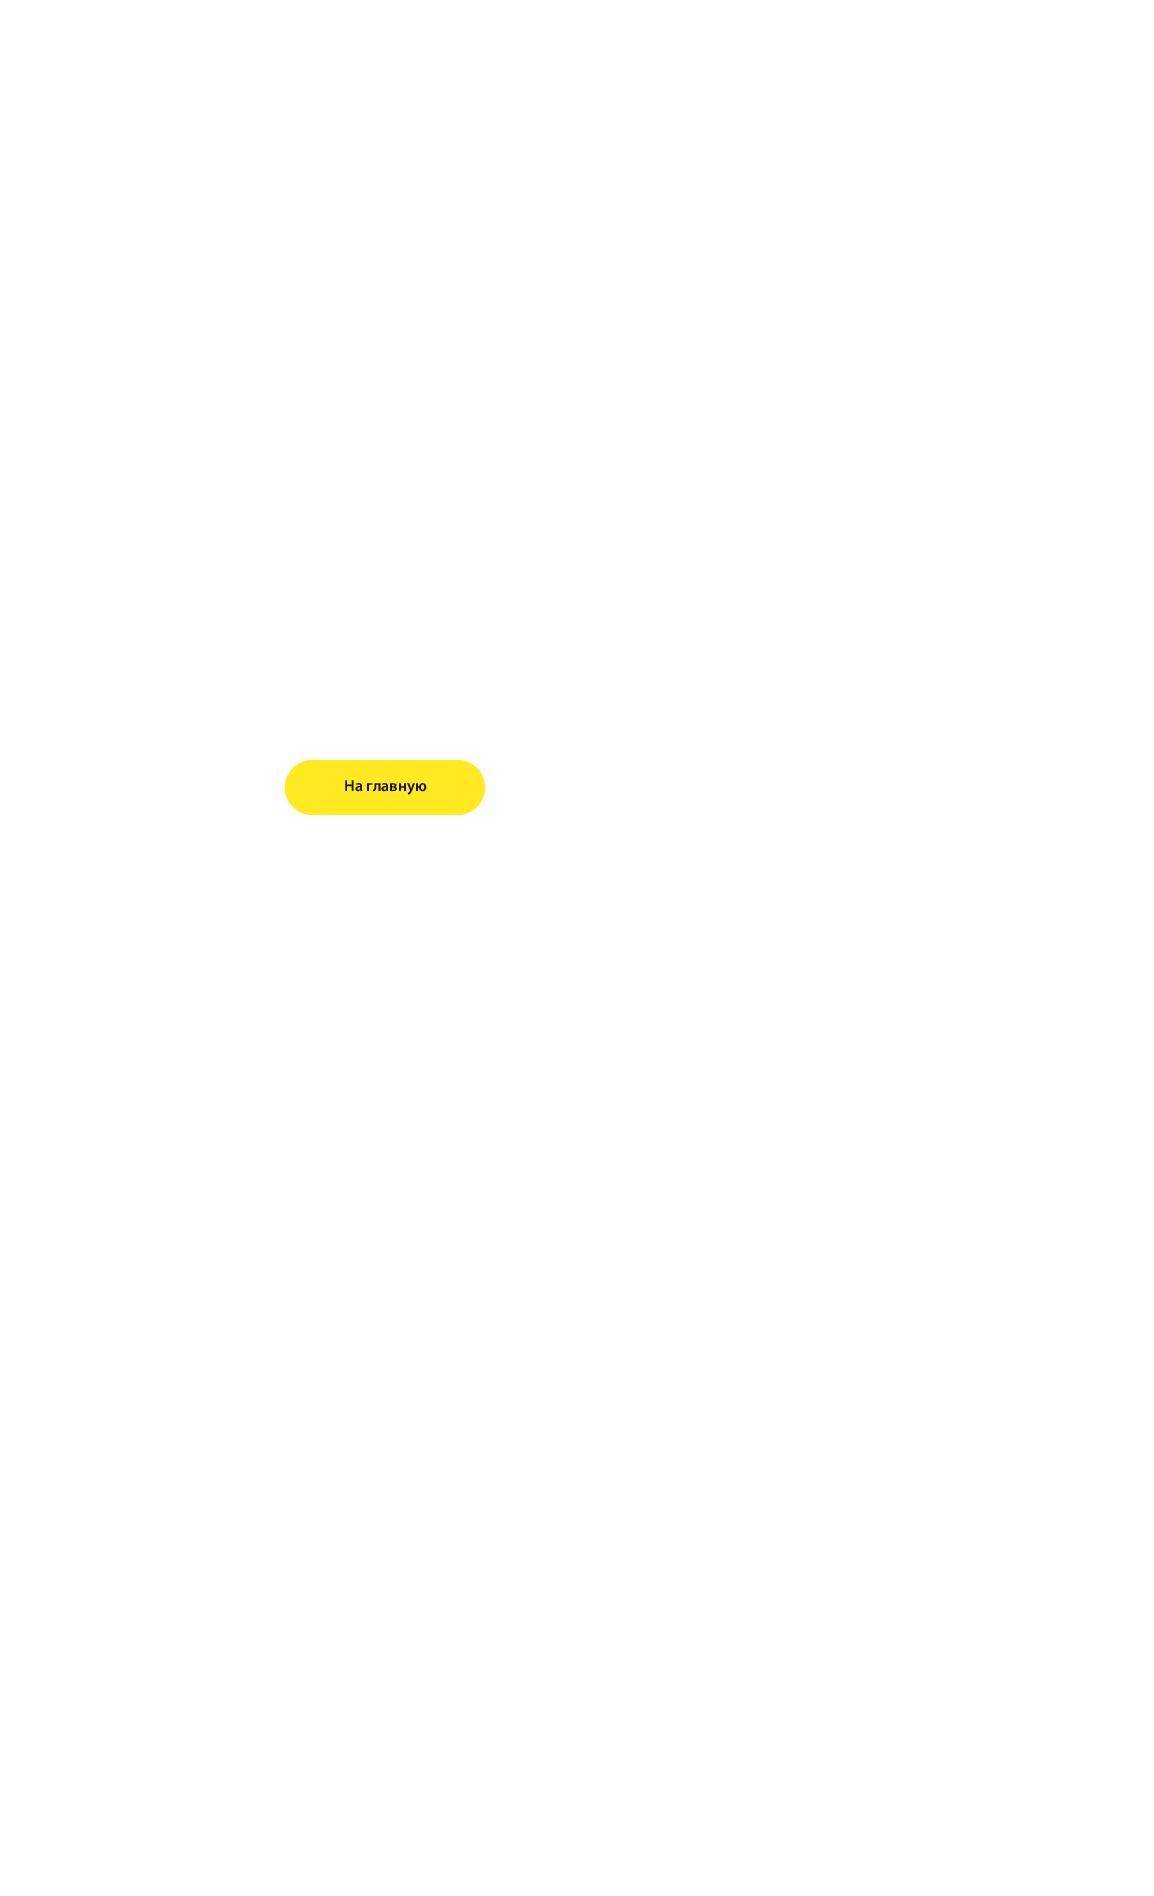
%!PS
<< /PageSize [1154 1896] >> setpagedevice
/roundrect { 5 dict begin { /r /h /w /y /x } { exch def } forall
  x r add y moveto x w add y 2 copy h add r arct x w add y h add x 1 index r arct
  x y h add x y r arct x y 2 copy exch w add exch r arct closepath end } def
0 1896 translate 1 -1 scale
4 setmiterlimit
1 setgray
0 0 1154 1896 rectfill
1 0.914 0.125 setrgbcolor
285 760 200 55 27.5 roundrect fill
/Myriad-SemiBold [16 0 0 -16 0 0] selectfont
0.078 setgray
344 791 moveto (На главную) show
showpage
